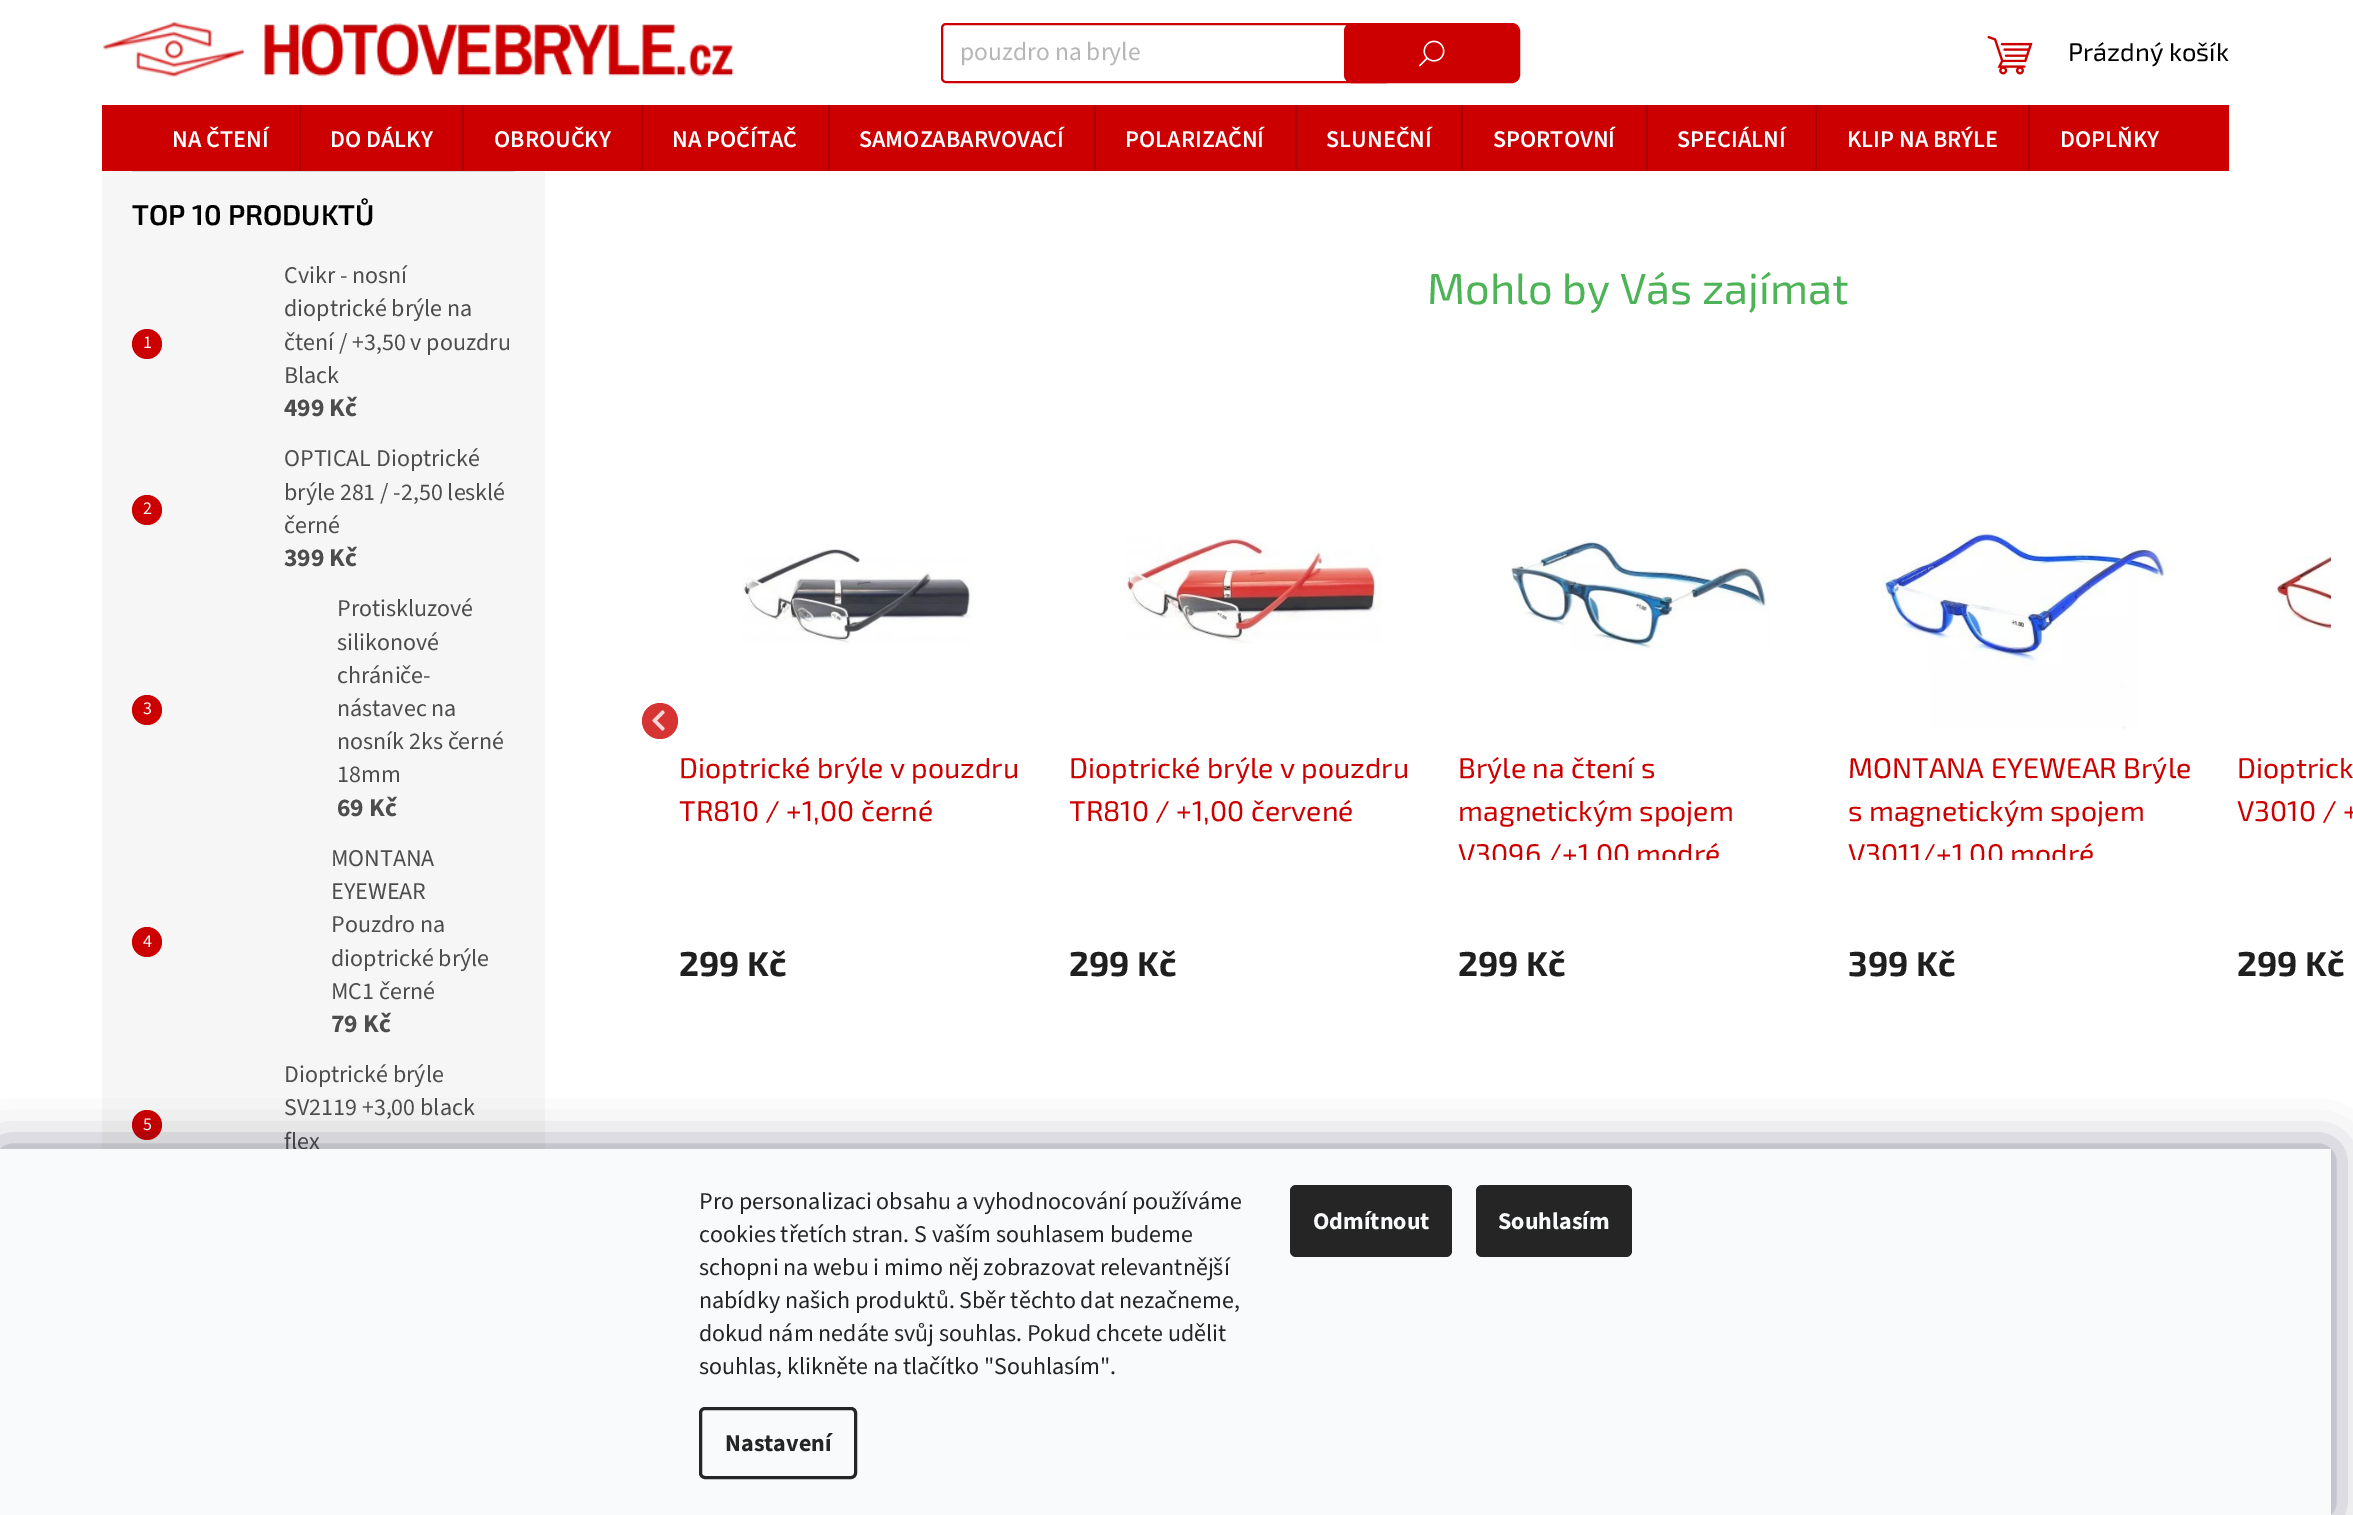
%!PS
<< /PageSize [2353 1515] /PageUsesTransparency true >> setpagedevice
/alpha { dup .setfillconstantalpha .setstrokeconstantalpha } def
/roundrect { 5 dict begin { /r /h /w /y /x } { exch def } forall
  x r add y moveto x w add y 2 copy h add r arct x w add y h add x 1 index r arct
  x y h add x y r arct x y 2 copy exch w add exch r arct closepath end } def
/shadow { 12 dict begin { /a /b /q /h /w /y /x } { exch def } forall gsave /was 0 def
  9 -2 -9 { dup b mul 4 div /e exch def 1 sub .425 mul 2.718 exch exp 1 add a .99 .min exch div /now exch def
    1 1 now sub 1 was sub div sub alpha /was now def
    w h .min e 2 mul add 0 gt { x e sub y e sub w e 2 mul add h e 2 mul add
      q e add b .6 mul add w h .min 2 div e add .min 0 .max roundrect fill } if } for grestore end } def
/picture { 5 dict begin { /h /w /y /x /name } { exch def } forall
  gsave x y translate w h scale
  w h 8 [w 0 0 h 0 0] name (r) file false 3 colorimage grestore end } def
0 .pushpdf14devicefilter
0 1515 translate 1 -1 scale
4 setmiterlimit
1 setgray
0 0 2353 1515 rectfill
(img1.rgb) 103 22 631 55 picture
0.8 0 0 setrgbcolor
2 setlinewidth
942 24 448 58 4 roundrect stroke
/SourceSans3-Regular [25.5 0 0 -25.5 0 0] selectfont
0.714 setgray
960 60 moveto (pouzdro na bryle) show
0.8 0 0 setrgbcolor
1345 24 174 58 7 roundrect gsave fill grestore
stroke
(img2.rgb) 1419 40 26 27 picture
(img3.rgb) 1987 35 46 40 picture
/Exo2-Regular [25.5 0 0 -25.5 0 0] selectfont
0 setgray
2068 61 moveto (Prázdný košík) show
0.8 0 0 setrgbcolor
102 105 2127 66 rectfill
/SourceSans3-SemiBold [24 0 0 -24 0 0] selectfont
1 setgray
172 147 moveto (NA ČTENÍ) show
0.659 0 0 setrgbcolor
299 105 2 66 rectfill
1 setgray
330 147 moveto (DO DÁLKY) show
0.659 0 0 setrgbcolor
462 105 2 66 rectfill
1 setgray
494 147 moveto (OBROUČKY) show
0.659 0 0 setrgbcolor
641 105 2 66 rectfill
1 setgray
672 147 moveto (NA POČÍTAČ) show
0.659 0 0 setrgbcolor
828 105 2 66 rectfill
1 setgray
859 147 moveto (SAMOZABARVOVACÍ) show
0.659 0 0 setrgbcolor
1094 105 2 66 rectfill
1 setgray
1125 147 moveto (POLARIZAČNÍ) show
0.659 0 0 setrgbcolor
1295 105 2 66 rectfill
1 setgray
1326 147 moveto (SLUNEČNÍ) show
0.659 0 0 setrgbcolor
1461 105 2 66 rectfill
1 setgray
1493 147 moveto (SPORTOVNÍ) show
0.659 0 0 setrgbcolor
1646 105 2 66 rectfill
1 setgray
1677 147 moveto (SPECIÁLNÍ) show
0.659 0 0 setrgbcolor
1815 105 2 66 rectfill
1 setgray
1847 147 moveto (KLIP NA BRÝLE) show
0.659 0 0 setrgbcolor
2028 105 2 66 rectfill
1 setgray
2060 147 moveto (DOPLŇKY) show
0.965 setgray
102 171 443 978 rectfill
0.855 setgray
132 171 383 1 rectfill
/Exo2-SemiBold [28.5 0 0 -28.5 0 0] selectfont
0 setgray
132 225 moveto (TOP 10 PRODUKTŮ) show
0.8 0 0 setrgbcolor
newpath 147 344 15 0 360 arc closepath fill
/SourceSans3-Regular [18 0 0 -18 0 0] selectfont
1 setgray
143 348 moveto (1) show
/SourceSans3-Regular [24 0 0 -24 0 0] selectfont
0.302 setgray
284 283 moveto (Cvikr - nosní) show
284 316 moveto (dioptrické brýle na) show
284 350 moveto (čtení / +3,50 v pouzdru) show
284 383 moveto (Black) show
/SourceSans3-Bold [25.5 0 0 -25.5 0 0] selectfont
284 416 moveto (499 Kč) show
0.8 0 0 setrgbcolor
newpath 147 510 15 0 360 arc closepath fill
/SourceSans3-Regular [18 0 0 -18 0 0] selectfont
1 setgray
143 514 moveto (2) show
/SourceSans3-Regular [24 0 0 -24 0 0] selectfont
0.302 setgray
284 466 moveto (OPTICAL Dioptrické) show
284 500 moveto (brýle 281 / -2,50 lesklé) show
284 533 moveto (černé) show
/SourceSans3-Bold [25.5 0 0 -25.5 0 0] selectfont
284 566 moveto (399 Kč) show
0.8 0 0 setrgbcolor
newpath 147 710 15 0 360 arc closepath fill
/SourceSans3-Regular [18 0 0 -18 0 0] selectfont
1 setgray
143 714 moveto (3) show
/SourceSans3-Regular [24 0 0 -24 0 0] selectfont
0.302 setgray
337 616 moveto (Protiskluzové) show
337 650 moveto (silikonové) show
337 683 moveto (chrániče-) show
337 716 moveto (nástavec na) show
337 749 moveto (nosník 2ks černé) show
337 782 moveto (18mm) show
/SourceSans3-Bold [25.5 0 0 -25.5 0 0] selectfont
337 816 moveto (69 Kč) show
0.8 0 0 setrgbcolor
newpath 147 942 15 0 360 arc closepath fill
/SourceSans3-Regular [18 0 0 -18 0 0] selectfont
1 setgray
143 947 moveto (4) show
/SourceSans3-Regular [24 0 0 -24 0 0] selectfont
0.302 setgray
331 866 moveto (MONTANA) show
331 899 moveto (EYEWEAR) show
331 932 moveto (Pouzdro na) show
331 966 moveto (dioptrické brýle) show
331 999 moveto (MC1 černé) show
/SourceSans3-Bold [25.5 0 0 -25.5 0 0] selectfont
331 1032 moveto (79 Kč) show
0.8 0 0 setrgbcolor
newpath 147 1125 15 0 360 arc closepath fill
/SourceSans3-Regular [18 0 0 -18 0 0] selectfont
1 setgray
143 1130 moveto (5) show
/SourceSans3-Regular [24 0 0 -24 0 0] selectfont
0.302 setgray
284 1082 moveto (Dioptrické brýle) show
284 1115 moveto (SV2119 +3,00 black) show
284 1149 moveto (flex) show
/Exo2-Regular [43.5 0 0 -43.5 0 0] selectfont
0.298 0.702 0.337 setrgbcolor
1427 304 moveto (Mohlo by Vás zajímat) show
0.839 0.2 0.2 setrgbcolor
newpath 660 739 moveto 650 739 642 731 642 721 curveto 642 711 650 703 660 703 curveto 670 703 678 711 678 721 curveto 678 731 670 739 660 739 curveto closepath fill
(img4.rgb) 652 710 13 21 picture
(img5.rgb) 742 549 231 96 picture
/Exo2-Regular [28.5 0 0 -28.5 0 0] selectfont
0.8 0 0 setrgbcolor
679 778 moveto (Dioptrické brýle v pouzdru) show
679 821 moveto (TR810 / +1,00 černé) show
/Exo2-Bold [34.5 0 0 -34.5 0 0] selectfont
0.122 setgray
679 976 moveto (299 Kč) show
(img6.rgb) 1124 536 258 108 picture
/Exo2-Regular [28.5 0 0 -28.5 0 0] selectfont
0.8 0 0 setrgbcolor
1069 778 moveto (Dioptrické brýle v pouzdru) show
gsave
1070 747 358 113 rectclip
1069 821 moveto (TR810 / +1,00 červené) show
grestore
/Exo2-Bold [34.5 0 0 -34.5 0 0] selectfont
0.122 setgray
1069 976 moveto (299 Kč) show
(img7.rgb) 1510 541 260 109 picture
/Exo2-Regular [28.5 0 0 -28.5 0 0] selectfont
0.8 0 0 setrgbcolor
1458 778 moveto (Brýle na čtení s) show
1458 821 moveto (magnetickým spojem) show
gsave
1458 747 360 113 rectclip
1458 864 moveto (V3096 /+1,00 modré) show
grestore
/Exo2-Bold [34.5 0 0 -34.5 0 0] selectfont
0.122 setgray
1458 976 moveto (299 Kč) show
(img8.rgb) 1881 529 286 200 picture
/Exo2-Regular [28.5 0 0 -28.5 0 0] selectfont
0.8 0 0 setrgbcolor
1848 778 moveto (MONTANA EYEWEAR Brýle) show
1848 821 moveto (s magnetickým spojem) show
gsave
1848 747 359 113 rectclip
1848 864 moveto (V3011/+1,00 modré) show
grestore
/Exo2-Bold [34.5 0 0 -34.5 0 0] selectfont
0.122 setgray
1848 976 moveto (399 Kč) show
(img9.rgb) 2276 556 55 75 picture
/Exo2-Regular [28.5 0 0 -28.5 0 0] selectfont
0.8 0 0 setrgbcolor
2237 778 moveto (Dioptrick) show
2237 821 moveto (V3010 / +) show
/Exo2-Bold [34.5 0 0 -34.5 0 0] selectfont
0.122 setgray
2237 976 moveto (299 Kč) show
0.106 0.098 0.224 setrgbcolor
0 1149 2331 366 0 22.5 0.5 shadow
0.973 0.98 0.984 setrgbcolor
0 1149 2331 366 rectfill
/SourceSans3-Regular [24 0 0 -24 0 0] selectfont
0.145 setgray
699 1209 moveto (Pro personalizaci obsahu a vyhodnocování používáme) show
699 1242 moveto (cookies třetích stran. S vaším souhlasem budeme) show
699 1275 moveto (schopni na webu i mimo něj zobrazovat relevantnější) show
699 1308 moveto (nabídky našich produktů. Sběr těchto dat nezačneme,) show
699 1341 moveto (dokud nám nedáte svůj souhlas. Pokud chcete udělit) show
699 1374 moveto (souhlas, klikněte na tlačítko "Souhlasím".) show
3 setlinewidth
700.5 1408.5 155 69 4.5 roundrect stroke
/SourceSans3-Bold [24 0 0 -24 0 0] selectfont
725 1451 moveto (Nastavení) show
1290 1185 162 72 6 roundrect fill
0.973 0.98 0.984 setrgbcolor
1313 1229 moveto (Odmítnout) show
0.145 setgray
1476 1185 156 72 6 roundrect fill
0.973 0.98 0.984 setrgbcolor
1498 1229 moveto (Souhlasím) show
.poppdf14devicefilter showpage
